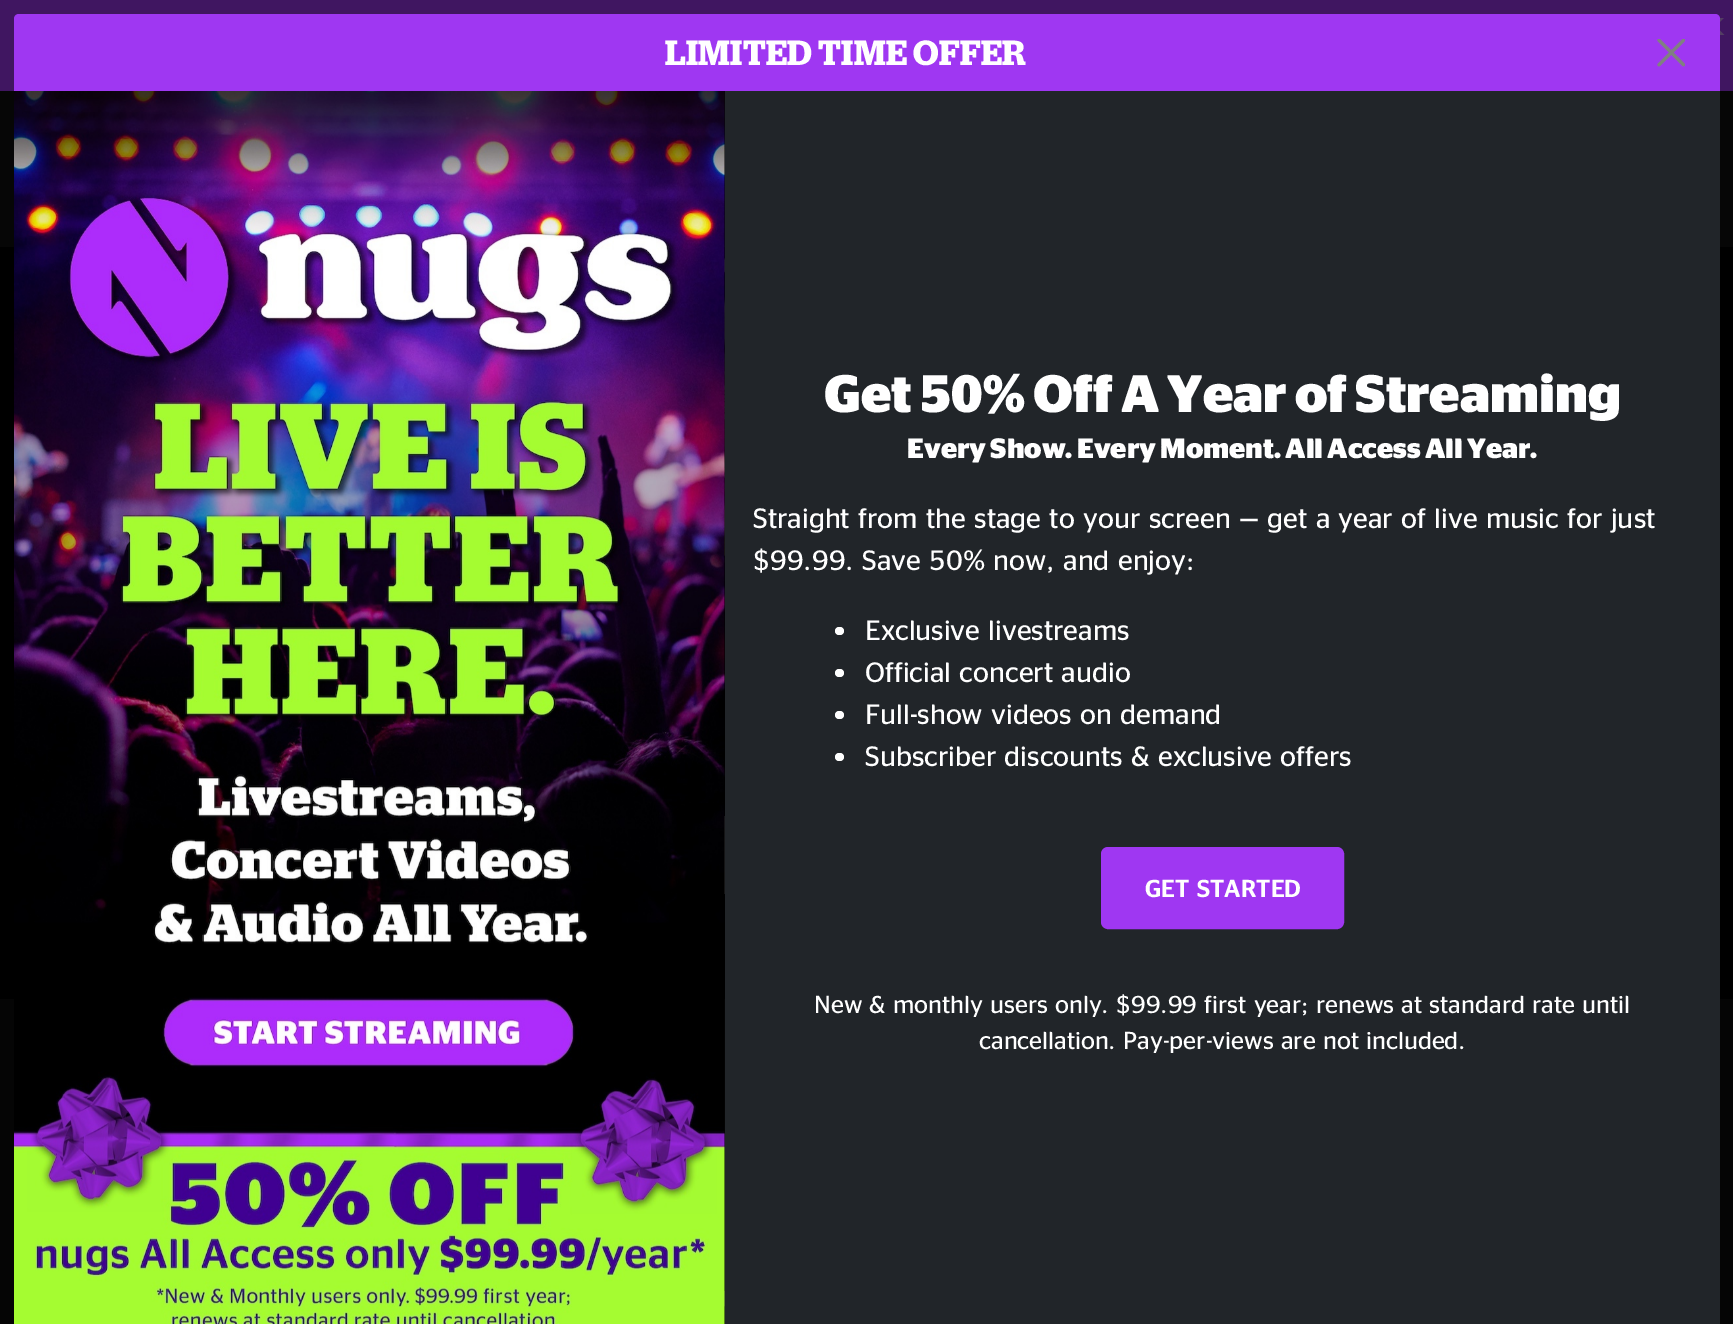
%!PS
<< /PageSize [1733 1324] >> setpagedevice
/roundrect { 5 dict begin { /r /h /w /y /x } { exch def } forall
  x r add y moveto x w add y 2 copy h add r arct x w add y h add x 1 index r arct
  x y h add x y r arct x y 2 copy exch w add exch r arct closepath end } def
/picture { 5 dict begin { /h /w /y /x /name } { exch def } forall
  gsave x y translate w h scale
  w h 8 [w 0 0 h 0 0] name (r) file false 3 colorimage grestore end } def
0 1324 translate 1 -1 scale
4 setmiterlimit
0 setgray
0 0 1733 1324 rectfill
0.251 0.086 0.38 setrgbcolor
0 0 1733 91 rectfill
(img1.rgb) 1719 18 6 17 picture
0.024 setgray
0 91 1733 156 rectfill
(img2.rgb) 724 247 1 310 picture
0.161 setgray
724 816 1 78 rectfill
0.02 setgray
0 999 1733 325 rectfill
0.624 0.216 0.949 setrgbcolor
newpath 19 14 moveto 1715 14 lineto 1718 14 1720 16 1720 19 curveto 1720 91 lineto 14 91 lineto 14 19 lineto 14 16 16 14 19 14 curveto closepath fill
/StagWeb-SemiBold [35 0 0 -35 0 0] selectfont
1 setgray
665 65 moveto 0.3 0 (LIMITED TIME OFFER) ashow
(img3.rgb) 1657 39 28 28 picture
(img4.rgb) 14 91 711 1233 picture
0.129 0.145 0.161 setrgbcolor
725 91 995 1233 rectfill
/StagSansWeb-Bold [52.5 0 0 -52.5 0 0] selectfont
1 setgray
824 412 moveto (Get 50% Off A Year of Streaming) show
/StagSansWeb-Bold [28 0 0 -28 0 0] selectfont
907 458 moveto (Every Show. Every Moment. All Access All Year.) show
/StagSansWeb-Regular [28 0 0 -28 0 0] selectfont
753 528 moveto (Straight from the stage to your screen — get a year of live music for just) show
753 570 moveto ($99.99. Save 50% now, and enjoy:) show
835 627 9 8 4 roundrect fill
865 640 moveto (Exclusive livestreams) show
835 669 9 8 4 roundrect fill
865 682 moveto (Official concert audio) show
835 711 9 8 4 roundrect fill
865 724 moveto (Full-show videos on demand) show
835 753 9 8 4 roundrect fill
865 766 moveto (Subscriber discounts & exclusive offers) show
0.624 0.216 0.949 setrgbcolor
1102 848 241 80 6 roundrect gsave fill grestore
2 setlinewidth
stroke
/StagSansWeb-Medium [24.5 0 0 -24.5 0 0] selectfont
1 setgray
1145 897 moveto (GET STARTED) show
/StagSansWeb-Regular [24.5 0 0 -24.5 0 0] selectfont
814 1013 moveto (New & monthly users only. $99.99 first year; renews at standard rate until) show
979 1049 moveto (cancellation. Pay-per-views are not included.) show
showpage
